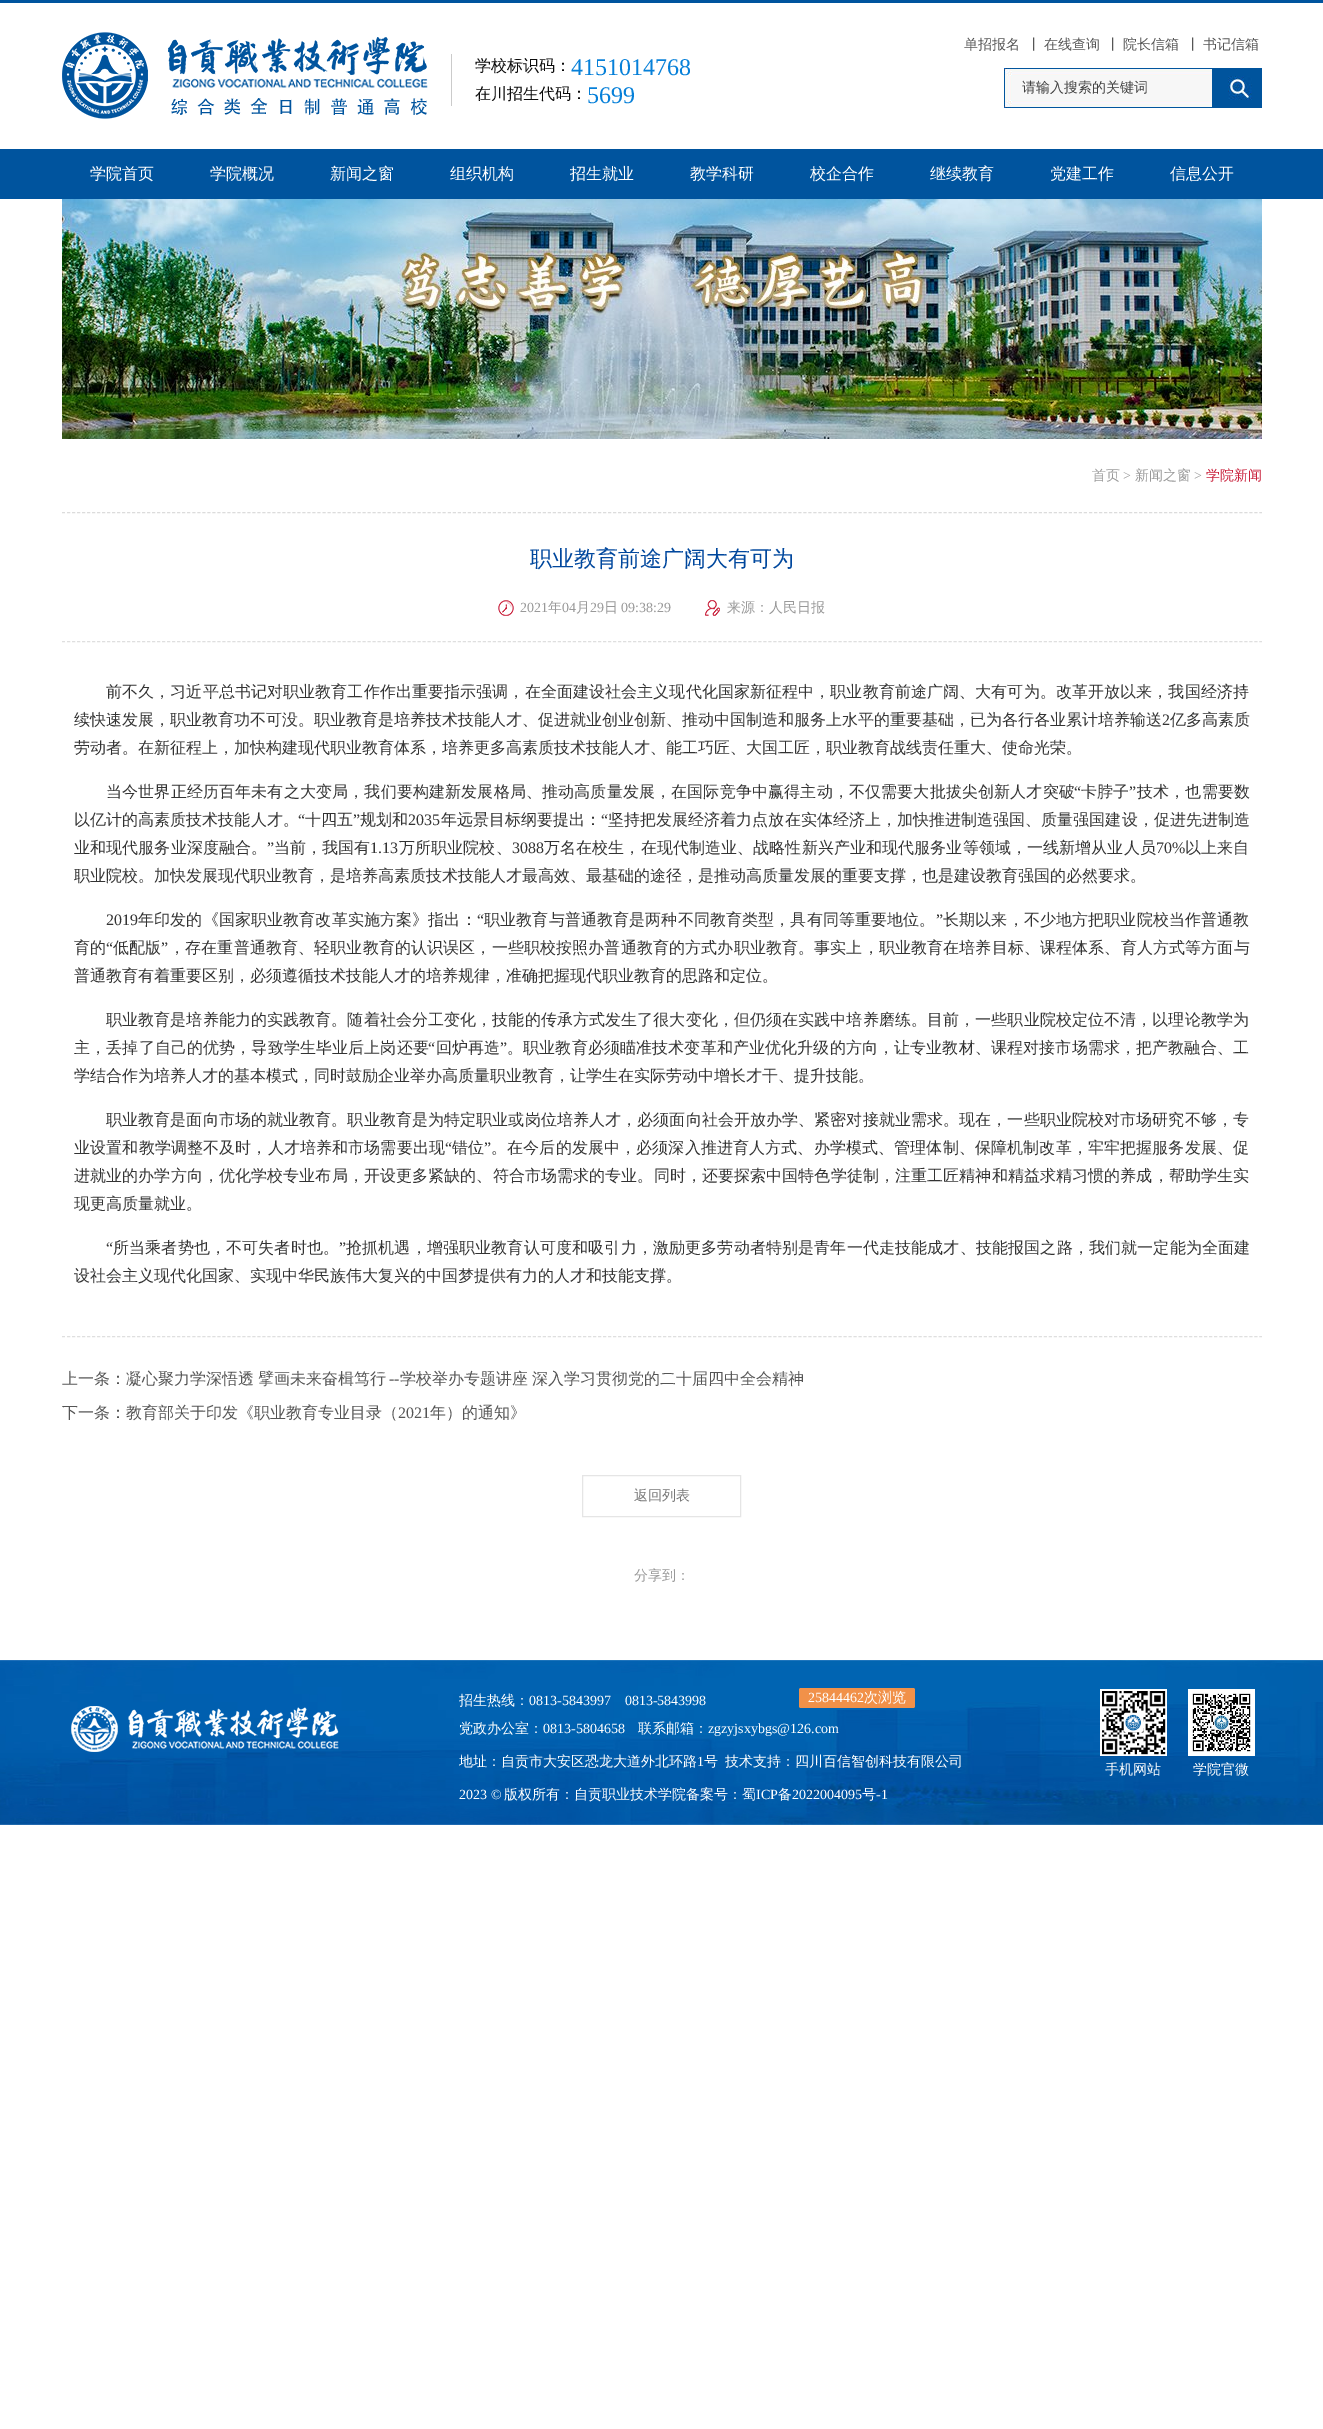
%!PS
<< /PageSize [1323 2429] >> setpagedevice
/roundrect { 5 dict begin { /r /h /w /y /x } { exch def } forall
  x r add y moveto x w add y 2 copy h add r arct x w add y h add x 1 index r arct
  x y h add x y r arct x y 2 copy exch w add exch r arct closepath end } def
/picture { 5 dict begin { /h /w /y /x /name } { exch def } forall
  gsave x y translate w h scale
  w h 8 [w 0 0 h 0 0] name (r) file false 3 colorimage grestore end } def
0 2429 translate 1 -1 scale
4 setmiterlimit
1 setgray
0 0 1323 2429 rectfill
0 0.329 0.62 setrgbcolor
0 0 1323 3 rectfill
(img1.rgb) 62 32 366 87 picture
0.796 setgray
451 54 1 52 rectfill
/WenQuanYiZenHei-Medium [16 0 0 -16 0 0] selectfont
0.047 setgray
475 71 moveto (学校标识码：) show
/LiberationSerif-Regular [24 0 0 -24 0 0] selectfont
0.024 0.502 0.851 setrgbcolor
571 75 moveto (4151014768) show
/WenQuanYiZenHei-Medium [16 0 0 -16 0 0] selectfont
0.047 setgray
475 99 moveto (在川招生代码：) show
/LiberationSerif-Regular [24 0 0 -24 0 0] selectfont
0.024 0.502 0.851 setrgbcolor
587 103 moveto (5699) show
/WenQuanYiZenHei-Medium [14 0 0 -14 0 0] selectfont
0.333 setgray
964 49 moveto (单招报名) show
1027 49 moveto (丨) show
1044 49 moveto (在线查询) show
1106 49 moveto (丨) show
1123 49 moveto (院长信箱) show
1186 49 moveto (丨) show
1203 49 moveto (书记信箱) show
(img2.rgb) 1004 68 258 40 picture
0.263 setgray
1022 92 moveto (请输入搜索的关键词) show
0 0.329 0.62 setrgbcolor
0 149 1323 50 rectfill
/WenQuanYiZenHei-Medium [16 0 0 -16 0 0] selectfont
1 setgray
90 179 moveto (学院首页) show
210 179 moveto (学院概况) show
330 179 moveto (新闻之窗) show
450 179 moveto (组织机构) show
570 179 moveto (招生就业) show
690 179 moveto (教学科研) show
810 179 moveto (校企合作) show
930 179 moveto (继续教育) show
1050 179 moveto (党建工作) show
1170 179 moveto (信息公开) show
(img3.rgb) 62 199 1200 240 picture
0.863 setgray
[3 2.01] 0 setdash
newpath 62 512.5 moveto 1262 512.5 lineto stroke
/WenQuanYiZenHei-Medium [14 0 0 -14 0 0] selectfont
0.6 setgray
1092 480 moveto (首页) show
/LiberationSerif-Regular [14 0 0 -14 0 0] selectfont
1123 480 moveto (>) show
/WenQuanYiZenHei-Medium [14 0 0 -14 0 0] selectfont
1135 480 moveto (新闻之窗) show
/LiberationSerif-Regular [14 0 0 -14 0 0] selectfont
1194 480 moveto (>) show
/WenQuanYiZenHei-Medium [14 0 0 -14 0 0] selectfont
0.788 0.129 0.235 setrgbcolor
1206 480 moveto (学院新闻) show
0.875 setgray
newpath 62 641.5 moveto 1262 641.5 lineto stroke
/WenQuanYiZenHei-Medium [22 0 0 -22 0 0] selectfont
0 0.278 0.616 setrgbcolor
530 566 moveto (职业教育前途广阔大有可为) show
(img4.rgb) 498 600 16 16 picture
/LiberationSerif-Regular [14 0 0 -14 0 0] selectfont
0.6 setgray
520 612 moveto (2021) show
/WenQuanYiZenHei-Medium [14 0 0 -14 0 0] selectfont
548 612 moveto (年) show
/LiberationSerif-Regular [14 0 0 -14 0 0] selectfont
562 612 moveto (04) show
/WenQuanYiZenHei-Medium [14 0 0 -14 0 0] selectfont
576 612 moveto (月) show
/LiberationSerif-Regular [14 0 0 -14 0 0] selectfont
590 612 moveto (29) show
/WenQuanYiZenHei-Medium [14 0 0 -14 0 0] selectfont
604 612 moveto (日) show
/LiberationSerif-Regular [14 0 0 -14 0 0] selectfont
621 612 moveto (09:38:29) show
(img5.rgb) 705 600 15 16 picture
/WenQuanYiZenHei-Medium [14 0 0 -14 0 0] selectfont
727 612 moveto (来源：人民日报) show
/WenQuanYiZenHei-Medium [16 0 0 -16 0 0] selectfont
0.2 setgray
106 697 moveto 0.1 0 (前不久，习近平总书记对职业教育工作作出重要指示强调，在全面建设社会主义现代化国家新征程中，职业教育前途广阔、大有可为。改革开放以来，我国经济持) ashow
74 725 moveto (续快速发展，职业教育功不可没。职业教育是培养技术技能人才、促进就业创业创新、推动中国制造和服务上水平的重要基础，已为各行各业累计培养输送) show
/LiberationSerif-Regular [16 0 0 -16 0 0] selectfont
1162 725 moveto (2) show
/WenQuanYiZenHei-Medium [16 0 0 -16 0 0] selectfont
1170 725 moveto (亿多高素质) show
74 753 moveto (劳动者。在新征程上，加快构建现代职业教育体系，培养更多高素质技术技能人才、能工巧匠、大国工匠，职业教育战线责任重大、使命光荣。) show
106 797 moveto 0.15 0 (当今世界正经历百年未有之大变局，我们要构建新发展格局、推动高质量发展，在国际竞争中赢得主动，不仅需要大批拔尖创新人才突破) ashow
/LiberationSerif-Regular [16 0 0 -16 0 0] selectfont
1074 797 moveto 0.15 0 (“) ashow
/WenQuanYiZenHei-Medium [16 0 0 -16 0 0] selectfont
1081 797 moveto 0.15 0 (卡脖子) ashow
/LiberationSerif-Regular [16 0 0 -16 0 0] selectfont
1129 797 moveto 0.15 0 (”) ashow
/WenQuanYiZenHei-Medium [16 0 0 -16 0 0] selectfont
1137 797 moveto 0.15 0 (技术，也需要数) ashow
74 825 moveto 0.05 0 (以亿计的高素质技术技能人才。) ashow
/LiberationSerif-Regular [16 0 0 -16 0 0] selectfont
298 825 moveto 0.05 0 (“) ashow
/WenQuanYiZenHei-Medium [16 0 0 -16 0 0] selectfont
305 825 moveto 0.05 0 (十四五) ashow
/LiberationSerif-Regular [16 0 0 -16 0 0] selectfont
353 825 moveto 0.05 0 (”) ashow
/WenQuanYiZenHei-Medium [16 0 0 -16 0 0] selectfont
360 825 moveto 0.05 0 (规划和) ashow
/LiberationSerif-Regular [16 0 0 -16 0 0] selectfont
408 825 moveto 0.05 0 (2035) ashow
/WenQuanYiZenHei-Medium [16 0 0 -16 0 0] selectfont
441 825 moveto 0.05 0 (年远景目标纲要提出：) ashow
/LiberationSerif-Regular [16 0 0 -16 0 0] selectfont
601 825 moveto 0.05 0 (“) ashow
/WenQuanYiZenHei-Medium [16 0 0 -16 0 0] selectfont
608 825 moveto 0.05 0 (坚持把发展经济着力点放在实体经济上，加快推进制造强国、质量强国建设，促进先进制造) ashow
74 853 moveto 0.1 0 (业和现代服务业深度融合。) ashow
/LiberationSerif-Regular [16 0 0 -16 0 0] selectfont
267 853 moveto 0.1 0 (”) ashow
/WenQuanYiZenHei-Medium [16 0 0 -16 0 0] selectfont
274 853 moveto 0.1 0 (当前，我国有) ashow
/LiberationSerif-Regular [16 0 0 -16 0 0] selectfont
370 853 moveto 0.1 0 (1.13) ashow
/WenQuanYiZenHei-Medium [16 0 0 -16 0 0] selectfont
399 853 moveto 0.1 0 (万所职业院校、) ashow
/LiberationSerif-Regular [16 0 0 -16 0 0] selectfont
512 853 moveto 0.1 0 (3088) ashow
/WenQuanYiZenHei-Medium [16 0 0 -16 0 0] selectfont
544 853 moveto 0.1 0 (万名在校生，在现代制造业、战略性新兴产业和现代服务业等领域，一线新增从业人员) ashow
/LiberationSerif-Regular [16 0 0 -16 0 0] selectfont
1156 853 moveto 0.1 0 (70%) ashow
/WenQuanYiZenHei-Medium [16 0 0 -16 0 0] selectfont
1185 853 moveto 0.1 0 (以上来自) ashow
74 881 moveto (职业院校。加快发展现代职业教育，是培养高素质技术技能人才最高效、最基础的途径，是推动高质量发展的重要支撑，也是建设教育强国的必然要求。) show
/LiberationSerif-Regular [16 0 0 -16 0 0] selectfont
106 925 moveto 0.13 0 (2019) ashow
/WenQuanYiZenHei-Medium [16 0 0 -16 0 0] selectfont
138 925 moveto 0.13 0 (年印发的《国家职业教育改革实施方案》指出：) ashow
/LiberationSerif-Regular [16 0 0 -16 0 0] selectfont
477 925 moveto 0.13 0 (“) ashow
/WenQuanYiZenHei-Medium [16 0 0 -16 0 0] selectfont
484 925 moveto 0.13 0 (职业教育与普通教育是两种不同教育类型，具有同等重要地位。) ashow
/LiberationSerif-Regular [16 0 0 -16 0 0] selectfont
936 925 moveto 0.13 0 (”) ashow
/WenQuanYiZenHei-Medium [16 0 0 -16 0 0] selectfont
943 925 moveto 0.13 0 (长期以来，不少地方把职业院校当作普通教) ashow
74 953 moveto 0.13 0 (育的) ashow
/LiberationSerif-Regular [16 0 0 -16 0 0] selectfont
106 953 moveto 0.13 0 (“) ashow
/WenQuanYiZenHei-Medium [16 0 0 -16 0 0] selectfont
113 953 moveto 0.13 0 (低配版) ashow
/LiberationSerif-Regular [16 0 0 -16 0 0] selectfont
161 953 moveto 0.13 0 (”) ashow
/WenQuanYiZenHei-Medium [16 0 0 -16 0 0] selectfont
169 953 moveto 0.13 0 (，存在重普通教育、轻职业教育的认识误区，一些职校按照办普通教育的方式办职业教育。事实上，职业教育在培养目标、课程体系、育人方式等方面与) ashow
74 981 moveto (普通教育有着重要区别，必须遵循技术技能人才的培养规律，准确把握现代职业教育的思路和定位。) show
106 1025 moveto 0.1 0 (职业教育是培养能力的实践教育。随着社会分工变化，技能的传承方式发生了很大变化，但仍须在实践中培养磨练。目前，一些职业院校定位不清，以理论教学为) ashow
74 1053 moveto 0.13 0 (主，丢掉了自己的优势，导致学生毕业后上岗还要) ashow
/LiberationSerif-Regular [16 0 0 -16 0 0] selectfont
428 1053 moveto 0.13 0 (“) ashow
/WenQuanYiZenHei-Medium [16 0 0 -16 0 0] selectfont
436 1053 moveto 0.13 0 (回炉再造) ashow
/LiberationSerif-Regular [16 0 0 -16 0 0] selectfont
500 1053 moveto 0.13 0 (”) ashow
/WenQuanYiZenHei-Medium [16 0 0 -16 0 0] selectfont
507 1053 moveto 0.13 0 (。职业教育必须瞄准技术变革和产业优化升级的方向，让专业教材、课程对接市场需求，把产教融合、工) ashow
74 1081 moveto (学结合作为培养人才的基本模式，同时鼓励企业举办高质量职业教育，让学生在实际劳动中增长才干、提升技能。) show
106 1125 moveto 0.1 0 (职业教育是面向市场的就业教育。职业教育是为特定职业或岗位培养人才，必须面向社会开放办学、紧密对接就业需求。现在，一些职业院校对市场研究不够，专) ashow
74 1153 moveto 0.13 0 (业设置和教学调整不及时，人才培养和市场需要出现) ashow
/LiberationSerif-Regular [16 0 0 -16 0 0] selectfont
445 1153 moveto 0.13 0 (“) ashow
/WenQuanYiZenHei-Medium [16 0 0 -16 0 0] selectfont
452 1153 moveto 0.13 0 (错位) ashow
/LiberationSerif-Regular [16 0 0 -16 0 0] selectfont
484 1153 moveto 0.13 0 (”) ashow
/WenQuanYiZenHei-Medium [16 0 0 -16 0 0] selectfont
491 1153 moveto 0.13 0 (。在今后的发展中，必须深入推进育人方式、办学模式、管理体制、保障机制改革，牢牢把握服务发展、促) ashow
74 1181 moveto 0.1 0 (进就业的办学方向，优化学校专业布局，开设更多紧缺的、符合市场需求的专业。同时，还要探索中国特色学徒制，注重工匠精神和精益求精习惯的养成，帮助学生实) ashow
gsave
74 642 1176 694 rectclip
74 1209 moveto (现更高质量就业。) show
grestore
/LiberationSerif-Regular [16 0 0 -16 0 0] selectfont
106 1253 moveto 0.15 0 (“) ashow
/WenQuanYiZenHei-Medium [16 0 0 -16 0 0] selectfont
113 1253 moveto 0.15 0 (所当乘者势也，不可失者时也。) ashow
/LiberationSerif-Regular [16 0 0 -16 0 0] selectfont
339 1253 moveto 0.15 0 (”) ashow
/WenQuanYiZenHei-Medium [16 0 0 -16 0 0] selectfont
346 1253 moveto 0.15 0 (抢抓机遇，增强职业教育认可度和吸引力，激励更多劳动者特别是青年一代走技能成才、技能报国之路，我们就一定能为全面建) ashow
74 1281 moveto (设社会主义现代化国家、实现中华民族伟大复兴的中国梦提供有力的人才和技能支撑。) show
0.875 setgray
newpath 62 1336.5 moveto 1262 1336.5 lineto stroke
0.333 setgray
62 1384 moveto (上一条：) show
126 1384 moveto -1 0 32 (凝心聚力学深悟透 擘画未来奋楫笃行) widthshow
/LiberationSerif-Regular [16 0 0 -16 0 0] selectfont
389 1384 moveto (--) show
/WenQuanYiZenHei-Medium [16 0 0 -16 0 0] selectfont
400 1384 moveto -1 0 32 (学校举办专题讲座 深入学习贯彻党的二十届四中全会精神) widthshow
62 1418 moveto (下一条：教育部关于印发《职业教育专业目录（) show
/LiberationSerif-Regular [16 0 0 -16 0 0] selectfont
398 1418 moveto (2021) show
/WenQuanYiZenHei-Medium [16 0 0 -16 0 0] selectfont
430 1418 moveto (年）的通知》) show
0.898 setgray
[] 0 setdash
582.5 1475.5 158 41 rectstroke
/WenQuanYiZenHei-Medium [14 0 0 -14 0 0] selectfont
0.467 setgray
634 1500 moveto (返回列表) show
0.6 setgray
634 1580 moveto (分享到：) show
(img6.rgb) 0 1660 1323 165 picture
0.945 0.569 0.286 setrgbcolor
799 1688 116 20 2 roundrect fill
/LiberationSerif-Regular [14 0 0 -14 0 0] selectfont
1 setgray
808 1702 moveto (25844462) show
/WenQuanYiZenHei-Medium [14 0 0 -14 0 0] selectfont
864 1702 moveto (次浏览) show
(img7.rgb) 71 1706 268 46 picture
459 1705 moveto (招生热线：) show
/LiberationSerif-Regular [14 0 0 -14 0 0] selectfont
529 1705 moveto (0813-5843997 0813-5843998) show
/WenQuanYiZenHei-Medium [14 0 0 -14 0 0] selectfont
459 1733 moveto (党政办公室：) show
/LiberationSerif-Regular [14 0 0 -14 0 0] selectfont
543 1733 moveto (0813-5804658) show
/WenQuanYiZenHei-Medium [14 0 0 -14 0 0] selectfont
638 1733 moveto (联系邮箱：) show
/LiberationSerif-Regular [14 0 0 -14 0 0] selectfont
708 1733 moveto (zgzyjsxybgs@126.com) show
/WenQuanYiZenHei-Medium [14 0 0 -14 0 0] selectfont
459 1766 moveto (地址：自贡市大安区恐龙大道外北环路) show
/LiberationSerif-Regular [14 0 0 -14 0 0] selectfont
697 1766 moveto (1) show
/WenQuanYiZenHei-Medium [14 0 0 -14 0 0] selectfont
704 1766 moveto (号) show
725 1766 moveto (技术支持：四川百信智创科技有限公司) show
/LiberationSerif-Regular [14 0 0 -14 0 0] selectfont
459 1799 moveto (2023 ©) show
/WenQuanYiZenHei-Medium [14 0 0 -14 0 0] selectfont
504 1799 moveto (版权所有：自贡职业技术学院备案号：蜀) show
/LiberationSerif-Regular [14 0 0 -14 0 0] selectfont
756 1799 moveto (ICP) show
/WenQuanYiZenHei-Medium [14 0 0 -14 0 0] selectfont
778 1799 moveto (备) show
/LiberationSerif-Regular [14 0 0 -14 0 0] selectfont
792 1799 moveto (2022004095) show
/WenQuanYiZenHei-Medium [14 0 0 -14 0 0] selectfont
862 1799 moveto (号) show
/LiberationSerif-Regular [14 0 0 -14 0 0] selectfont
876 1799 moveto (-1) show
(img8.rgb) 1100 1689 67 67 picture
/WenQuanYiZenHei-Medium [14 0 0 -14 0 0] selectfont
1105 1774 moveto (手机网站) show
(img9.rgb) 1188 1689 67 67 picture
1193 1774 moveto (学院官微) show
showpage
